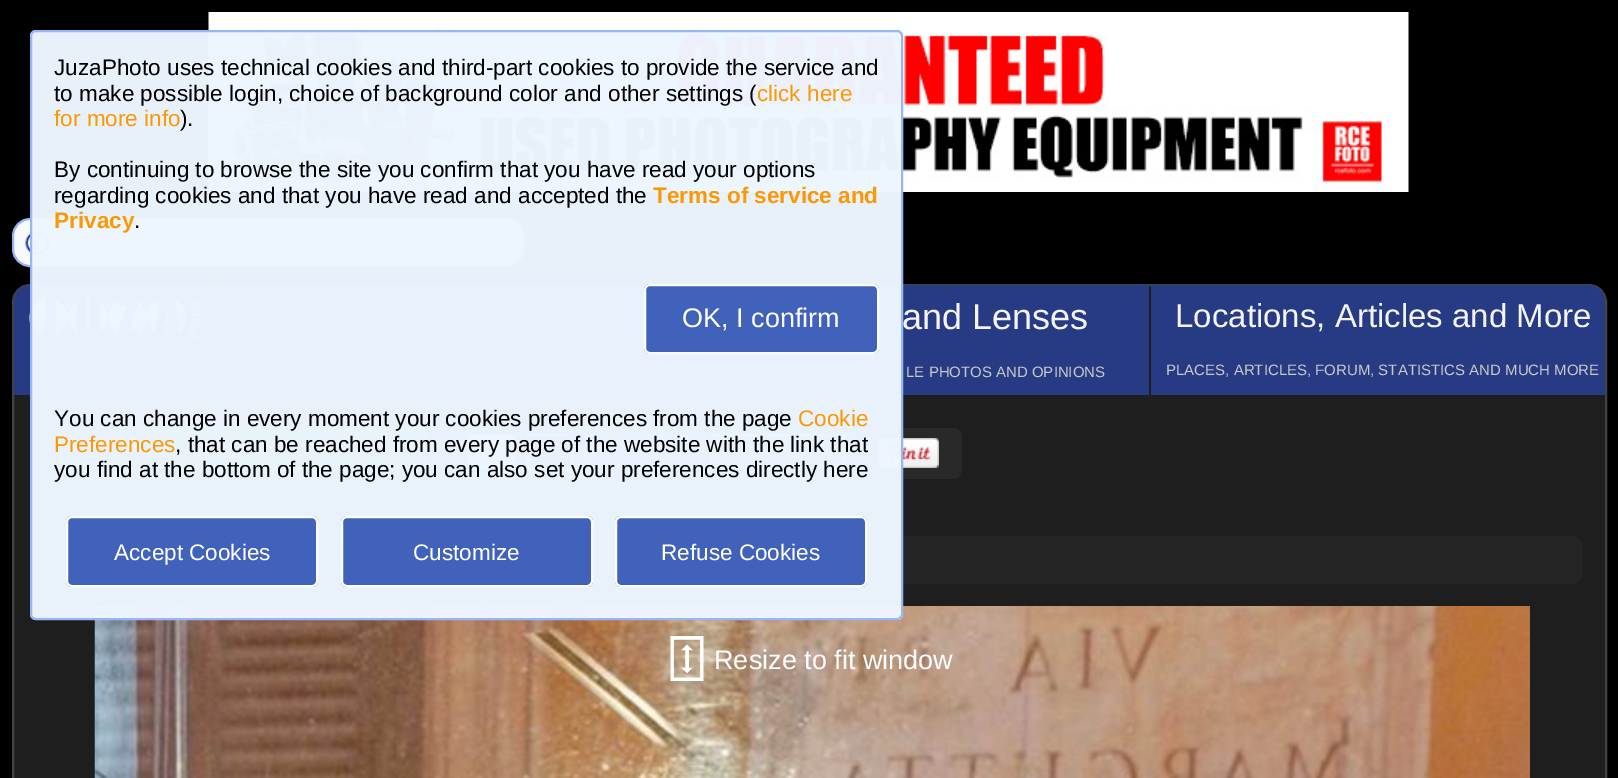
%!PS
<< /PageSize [1618 778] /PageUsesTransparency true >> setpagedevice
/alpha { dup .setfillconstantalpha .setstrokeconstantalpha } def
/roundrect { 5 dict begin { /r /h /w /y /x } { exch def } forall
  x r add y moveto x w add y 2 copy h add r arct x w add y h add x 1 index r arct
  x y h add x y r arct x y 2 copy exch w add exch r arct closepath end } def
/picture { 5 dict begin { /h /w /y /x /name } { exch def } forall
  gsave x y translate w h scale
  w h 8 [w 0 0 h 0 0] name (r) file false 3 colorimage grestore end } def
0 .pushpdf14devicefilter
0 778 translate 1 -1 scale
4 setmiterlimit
0 setgray
0 0 1618 778 rectfill
(img1.rgb) 208 12 1201 180 picture
0.118 setgray
13 285 1593 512 17 roundrect gsave fill grestore
0.259 setgray
2 setlinewidth
stroke
0.95 alpha
0.153 0.235 0.537 setrgbcolor
newpath 31 285 moveto 219 285 lineto 219 395 lineto 14 395 lineto 14 302 lineto 14 292.5 21.5 285 31 285 curveto closepath fill
1 alpha
(img2.rgb) 29 298 171 40 picture
0.95 alpha
221 285 463 110 rectfill
686 285 463 110 rectfill
1 alpha
0.161 setgray
newpath 44 426 moveto 167 426 lineto 167 471 lineto 44 471 lineto 39 471 35 467 35 462 curveto 35 435 lineto 35 430 39 426 44 426 curveto closepath fill
(img3.rgb) 125 436 17 16 picture
0 0.502 0 setrgbcolor
newpath 168 426 moveto 419 426 lineto 424 426 428 430 428 435 curveto 428 462 lineto 428 467 424 471 419 471 curveto 168 471 lineto closepath fill
0.161 setgray
447 428 515 51 9 roundrect fill
0.918 setgray
newpath 469 435 moveto 514 435 lineto 514 469 lineto 469 469 lineto closepath gsave fill grestore
0.733 setgray
stroke
0.016 setgray
newpath 528 435 moveto 572 435 lineto 572 469 lineto 528 469 lineto closepath gsave fill grestore
0.733 setgray
stroke
0.506 0.588 0.827 setrgbcolor
584 434 117 2 rectfill
584 467 31 2 rectfill
584 434 2 34 rectfill
0.212 0.314 0.616 setrgbcolor
586 436 113 31 rectfill
0.506 0.588 0.827 setrgbcolor
699 434 2 34 rectfill
0.337 0.565 0.294 setrgbcolor
newpath 712 435 moveto 844 435 lineto 844 467 lineto 712 467 lineto closepath gsave fill grestore
0.667 0.8 0.639 setrgbcolor
stroke
0.506 0.588 0.827 setrgbcolor
615 467 86 2 rectfill
(img4.rgb) 879 438 60 30 picture
0.145 setgray
30 536 1553 48 12 roundrect fill
(img5.rgb) 94 606 1436 172 picture
0.969 0.976 0.984 setrgbcolor
13 219 510 47 17 roundrect gsave fill grestore
0.592 0.71 0.957 setrgbcolor
stroke
(img7.rgb) 25 231 25 24 picture
0.98 alpha
0.929 0.961 1 setrgbcolor
30 30 873 590 6 roundrect fill
0.592 0.71 0.957 setrgbcolor
31 31 871 588 5 roundrect stroke
/LiberationSans-Regular [22.5 0 0 -22.5 0 0] selectfont
1 alpha
0 setgray
54 75 moveto (JuzaPhoto) show
167 75 moveto (uses technical cookies and third-part cookies to provide the service and) show
54 101 moveto (to make possible login, choice of background color and other settings \() show
0.984 0.6 0.02 setrgbcolor
757 101 moveto (click here) show
54 126 moveto (for more info) show
0 setgray
180 126 moveto (\).) show
54 177 moveto (By continuing to browse the site you confirm that you have read your options) show
54 203 moveto (regarding cookies and that you have read and accepted the) show
/LiberationSans-Bold [22.5 0 0 -22.5 0 0] selectfont
0.984 0.6 0.02 setrgbcolor
653 203 moveto (Terms of service and) show
54 228 moveto (Privacy) show
/LiberationSans-Regular [22.5 0 0 -22.5 0 0] selectfont
0 setgray
134 228 moveto (.) show
0.98 alpha
0.239 0.373 0.729 setrgbcolor
644 284 235 70 6 roundrect fill
1 setgray
645 285 233 68 5 roundrect stroke
/LiberationSans-Regular [27 0 0 -27 0 0] selectfont
1 alpha
682 327 moveto (OK, I confirm) show
/LiberationSans-Regular [22.5 0 0 -22.5 0 0] selectfont
0 setgray
54 426 moveto (You can change in every moment your cookies preferences from the page) show
0.984 0.6 0.02 setrgbcolor
798 426 moveto (Cookie) show
54 452 moveto (Preferences) show
0 setgray
175 452 moveto (, that can be reached from every page of the website with the link that) show
54 477 moveto (you find at the bottom of the page; you can also set your preferences directly here) show
0.98 alpha
0.239 0.373 0.729 setrgbcolor
66 516 252 71 6 roundrect fill
1 setgray
67 517 250 69 5 roundrect stroke
1 alpha
114 560 moveto (Accept Cookies) show
0.98 alpha
0.239 0.373 0.729 setrgbcolor
341 516 252 71 6 roundrect fill
1 setgray
342 517 250 69 5 roundrect stroke
1 alpha
413 560 moveto (Customize) show
0.251 0.384 0.733 setrgbcolor
615 516 252 71 6 roundrect fill
0.98 alpha
1 setgray
616 517 250 69 5 roundrect stroke
1 alpha
661 560 moveto (Refuse Cookies) show
/LiberationSans-Regular [36 0 0 -36 0 0] selectfont
0.957 setgray
902 329 moveto (and Lenses) show
/LiberationSans-Regular [15 0 0 -15 0 0] selectfont
0.788 setgray
906 377 moveto (LE PHOTOS AND OPINIONS) show
0.95 alpha
0.153 0.235 0.537 setrgbcolor
newpath 1151 285 moveto 1588 285 lineto 1597.5 285 1605 292.5 1605 302 curveto 1605 395 lineto 1151 395 lineto closepath fill
/LiberationSans-Regular [33 0 0 -33 0 0] selectfont
1 alpha
0.957 setgray
1175 327 moveto (Locations, Articles and More) show
/LiberationSans-Regular [15 0 0 -15 0 0] selectfont
0.788 setgray
1166 375 moveto (PLACES, ARTICLES, FORUM, STATISTICS AND MUCH MORE) show
(img6.rgb) 670 636 34 45 picture
/LiberationSans-Regular [27 0 0 -27 0 0] selectfont
1 setgray
714 669 moveto (Resize to fit window) show
.poppdf14devicefilter showpage
